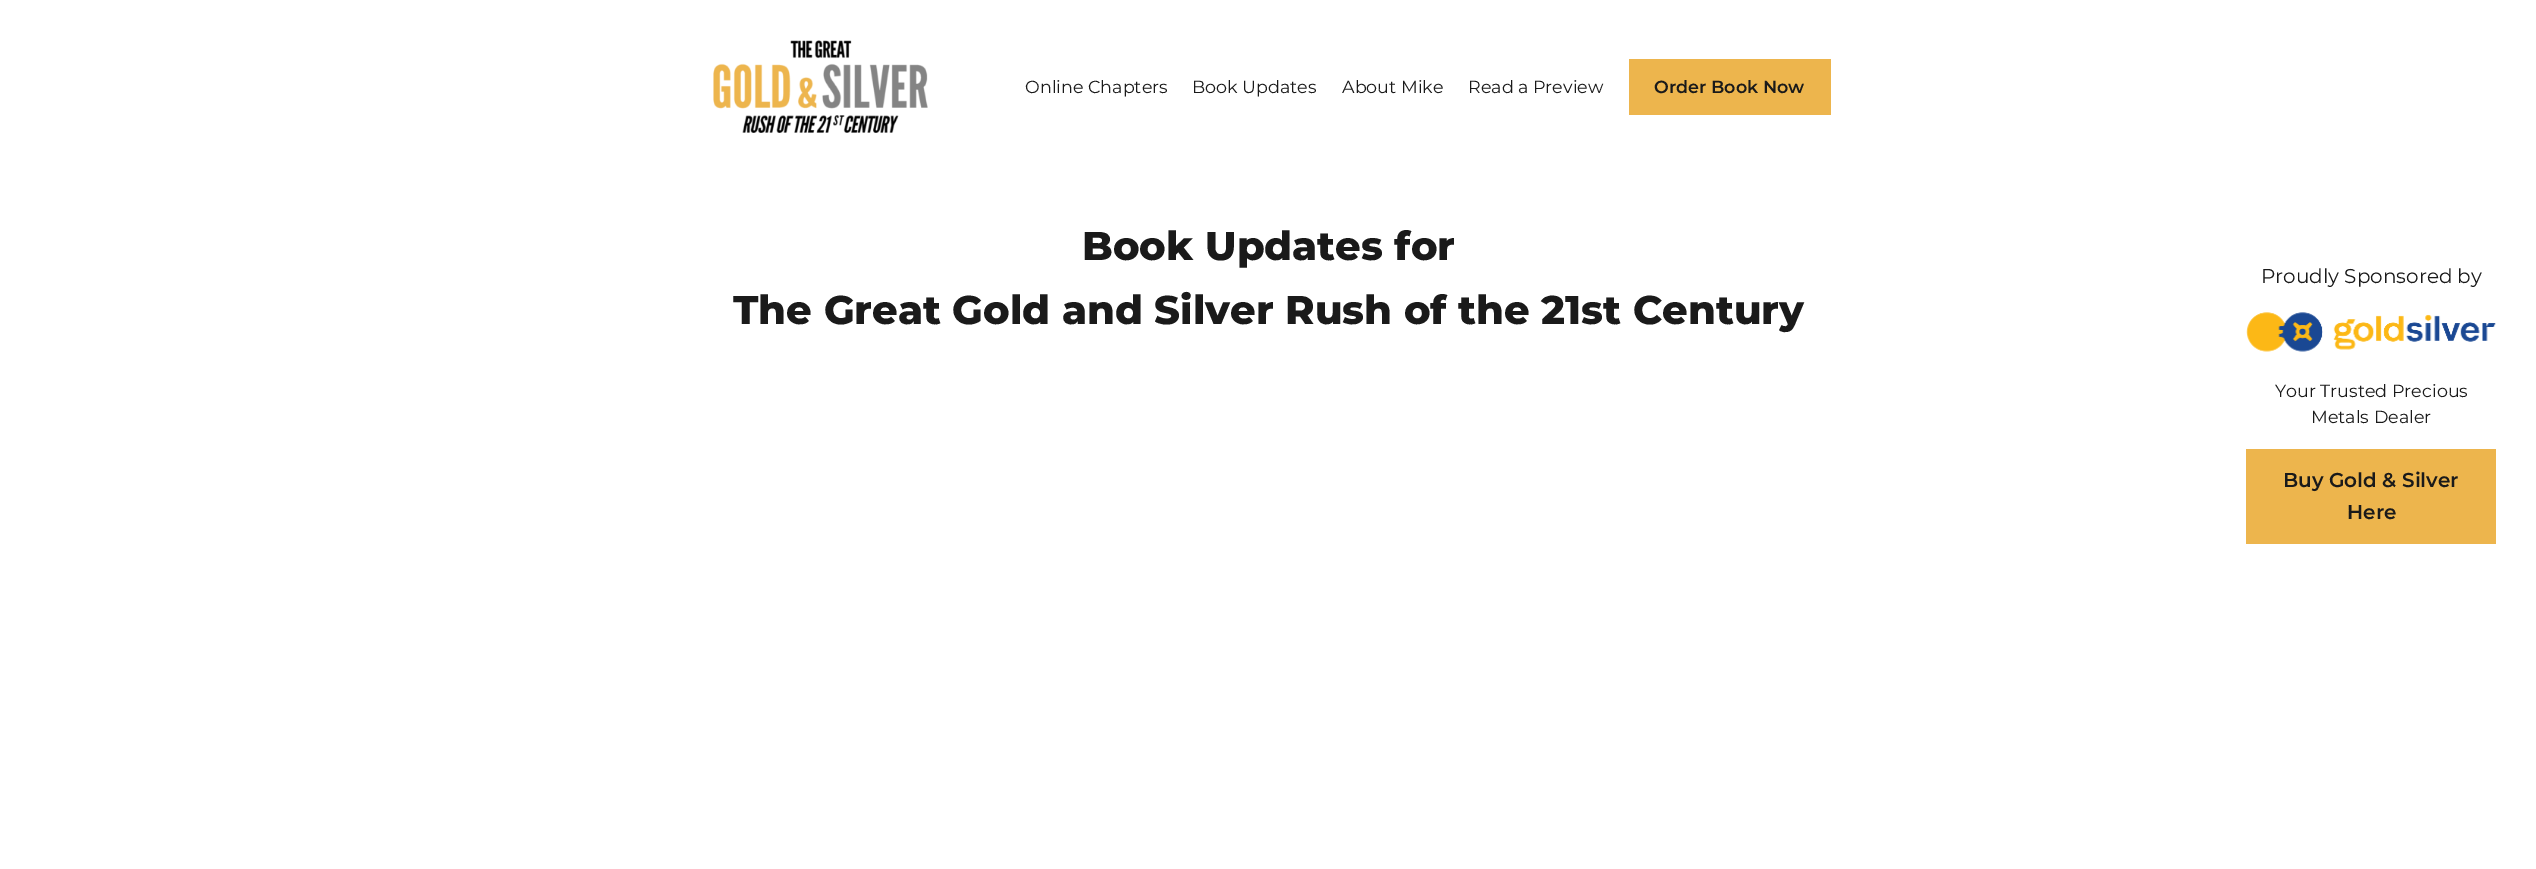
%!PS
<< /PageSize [2536 869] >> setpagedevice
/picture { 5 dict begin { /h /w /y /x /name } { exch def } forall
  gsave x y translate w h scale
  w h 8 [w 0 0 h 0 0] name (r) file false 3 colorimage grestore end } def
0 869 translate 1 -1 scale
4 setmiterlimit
1 setgray
0 0 2536 869 rectfill
(img1.rgb) 713 40 215 93 picture
/Montserrat-Regular [17.5 0 0 -17.5 0 0] selectfont
0.102 setgray
1025 93 moveto (Online Chapters) show
1192 93 moveto (Book Updates) show
1342 93 moveto (About Mike) show
1468 93 moveto (Read a Preview) show
0.929 0.71 0.302 setrgbcolor
1629 59 202 56 rectfill
/Montserrat-SemiBold [17.5 0 0 -17.5 0 0] selectfont
0.102 setgray
1654 93 moveto (Order Book Now) show
/Montserrat-ExtraBold [40 0 0 -40 0 0] selectfont
1082 260 moveto (Book Updates for) show
733 324 moveto (The Great Gold and Silver Rush of the 21st Century) show
/Montserrat-Regular [20 0 0 -20 0 0] selectfont
2261 283 moveto (Proudly Sponsored by) show
(img2.rgb) 2246 312 250 40 picture
/Montserrat-Regular [17.5 0 0 -17.5 0 0] selectfont
2275 397 moveto (Your Trusted Precious) show
2311 423 moveto (Metals Dealer) show
0.929 0.71 0.302 setrgbcolor
2246 449 250 95 rectfill
/Montserrat-SemiBold [20 0 0 -20 0 0] selectfont
0.102 setgray
2283 487 moveto (Buy Gold & Silver) show
2347 519 moveto (Here) show
showpage
